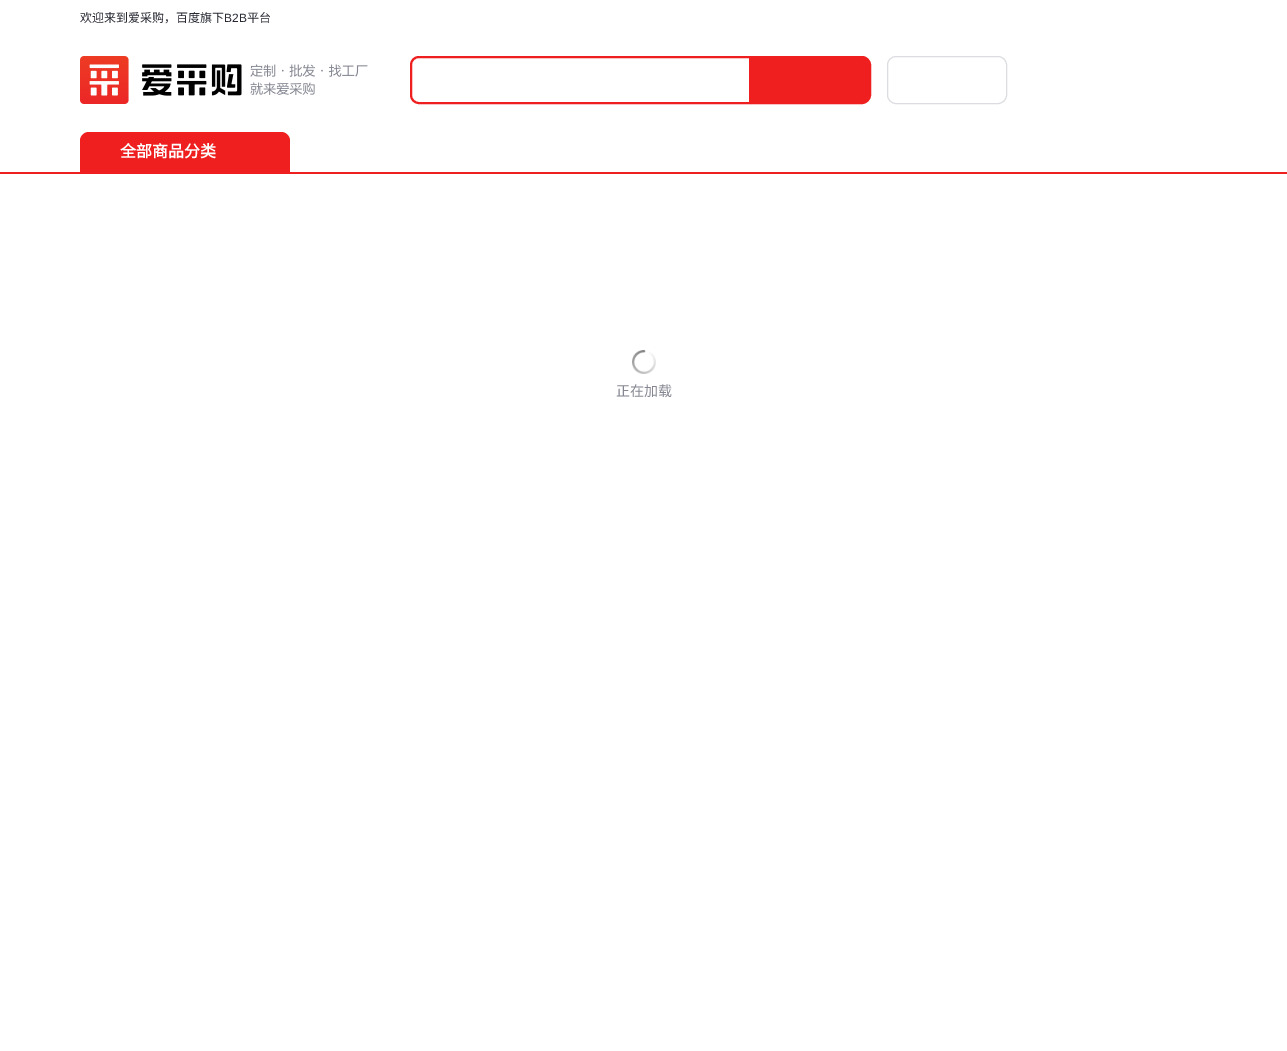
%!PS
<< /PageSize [1287 1051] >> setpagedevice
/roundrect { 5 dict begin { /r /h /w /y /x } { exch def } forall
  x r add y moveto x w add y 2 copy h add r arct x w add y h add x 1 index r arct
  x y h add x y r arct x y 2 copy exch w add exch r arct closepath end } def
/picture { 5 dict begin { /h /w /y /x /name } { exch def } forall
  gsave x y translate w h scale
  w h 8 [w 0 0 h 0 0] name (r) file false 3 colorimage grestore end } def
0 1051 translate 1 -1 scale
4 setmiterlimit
1 setgray
0 0 1287 1051 rectfill
/NotoSansCJKSC-Regular [12 0 0 -12 0 0] selectfont
0.153 0.161 0.2 setrgbcolor
80 22 moveto (欢迎来到爱采购，百度旗下) show
/LiberationSans-Regular [12 0 0 -12 0 0] selectfont
224 22 moveto (B2B) show
/NotoSansCJKSC-Regular [12 0 0 -12 0 0] selectfont
247 22 moveto (平台) show
(img1.rgb) 80 56 288 48 picture
0.937 0.122 0.122 setrgbcolor
2 setlinewidth
newpath 419 57 moveto 750 57 lineto 750 103 lineto 419 103 lineto 414.5 103 411 99.5 411 95 curveto 411 65 lineto 411 60.5 414.5 57 419 57 curveto closepath stroke
newpath 751.5 56.5 moveto 862 56.5 lineto 866.5 56.5 870.5 60.5 870.5 65 curveto 870.5 95 lineto 870.5 99.5 866.5 103.5 862 103.5 curveto 751.5 103.5 lineto closepath gsave fill grestore
1 setlinewidth
stroke
0.863 0.867 0.878 setrgbcolor
887.5 56.5 119 47 8.5 roundrect stroke
0.937 0.122 0.122 setrgbcolor
0 172 1287 2 rectfill
newpath 89 132 moveto 281 132 lineto 286 132 290 136 290 141 curveto 290 172 lineto 80 172 lineto 80 141 lineto 80 136 84 132 89 132 curveto closepath fill
/NotoSansCJKSC-Bold [16 0 0 -16 0 0] selectfont
1 setgray
120 157 moveto (全部商品分类) show
(img2.rgb) 632 350 24 24 picture
/NotoSansCJKSC-Regular [14 0 0 -14 0 0] selectfont
0.518 0.525 0.569 setrgbcolor
616 396 moveto (正在加载) show
showpage
